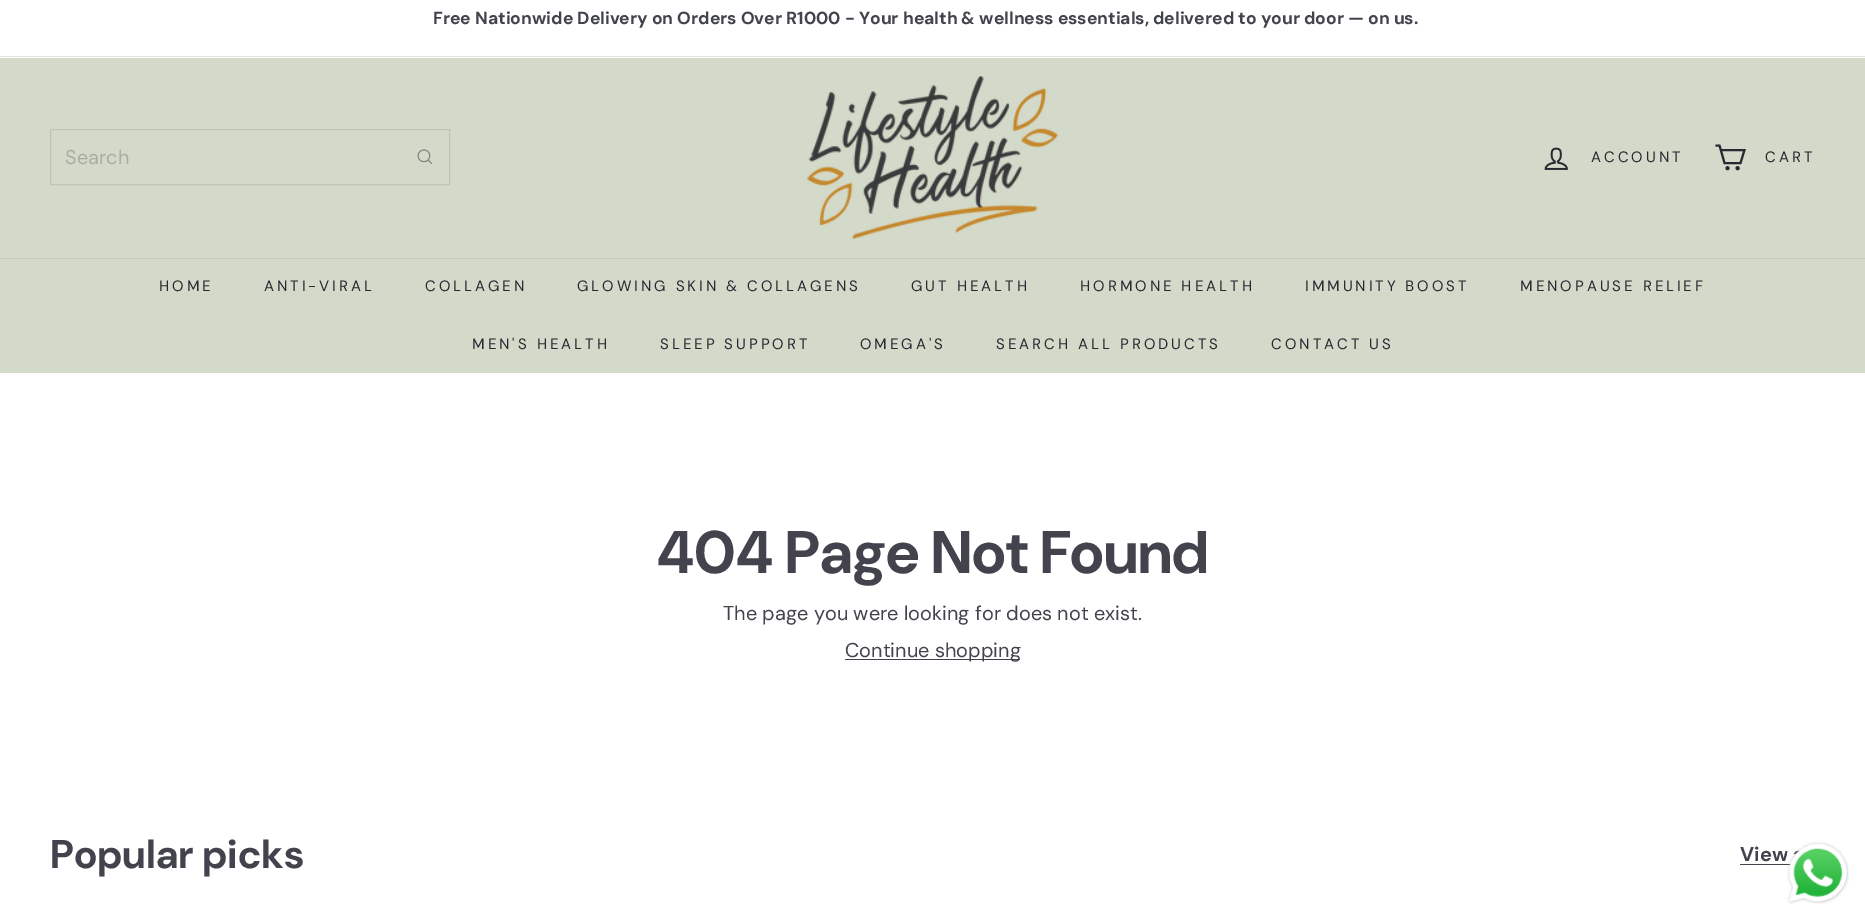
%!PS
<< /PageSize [1865 919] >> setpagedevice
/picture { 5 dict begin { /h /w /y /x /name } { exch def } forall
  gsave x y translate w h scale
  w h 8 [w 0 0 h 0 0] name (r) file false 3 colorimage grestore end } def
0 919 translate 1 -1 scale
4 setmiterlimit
1 setgray
0 0 1865 919 rectfill
/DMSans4-Bold [17.5 0 0 -17.5 0 0] selectfont
0.259 0.263 0.302 setrgbcolor
433 24 moveto (Free Nationwide Delivery on Orders Over R1000 - Your health & wellness essentials, delivered to your door — on us.) show
0.89 0.89 0.894 setrgbcolor
0 56 1865 1 rectfill
0.827 0.855 0.788 setrgbcolor
0 58 1865 200 rectfill
0.745 0.773 0.718 setrgbcolor
50.5 129.5 399 55 rectstroke
/DMSans-Regular [20 0 0 -20 0 0] selectfont
0.659 0.682 0.639 setrgbcolor
65 164 moveto (Search) show
(img1.rgb) 417 149 16 15 picture
(img2.rgb) 807 76 251 163 picture
(img3.rgb) 1544 147 24 23 picture
/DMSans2-Regular [15 0 0 -15 0 0] selectfont
0.153 0.157 0.192 setrgbcolor
1591 162 moveto 3 0 (ACCOUNT) ashow
2 setlinewidth
newpath 1721 150 moveto 1744.5 150 lineto 1740.5 163 lineto 1724.5 163 lineto 1719.5 145.5 lineto 1715.5 145.5 lineto stroke
newpath 1727.5 168.2 1 0 360 arc closepath stroke
newpath 1737.6 168.2 1 0 360 arc closepath stroke
1765 162 moveto 3 0 (CART) ashow
0.827 0.855 0.788 setrgbcolor
0 259 1865 114 rectfill
0.761 0.784 0.729 setrgbcolor
0 258 1865 1 rectfill
0.153 0.157 0.192 setrgbcolor
159 291 moveto 3 0 (HOME) ashow
264 291 moveto 3 0 (ANTI-VIRAL) ashow
425 291 moveto 3 0 (COLLAGEN) ashow
577 291 moveto 3 0 (GLOWING SKIN & COLLAGENS) ashow
911 291 moveto 3 0 (GUT HEALTH) ashow
1080 291 moveto 3 0 (HORMONE HEALTH) ashow
1305 291 moveto 3 0 (IMMUNITY BOOST) ashow
1520 291 moveto 3 0 (MENOPAUSE RELIEF) ashow
472 349 moveto 3 0 (MEN'S HEALTH) ashow
660 349 moveto 3 0 (SLEEP SUPPORT) ashow
860 349 moveto 3 0 (OMEGA'S) ashow
996 349 moveto 3 0 (SEARCH ALL PRODUCTS) ashow
1271 349 moveto 3 0 (CONTACT US) ashow
/DMSans-Bold [60 0 0 -60 0 0] selectfont
0.259 0.263 0.302 setrgbcolor
657 573 moveto (404 Page Not Found) show
/DMSans-Regular [20 0 0 -20 0 0] selectfont
723 620 moveto (The page you were looking for does not exist.) show
845 659 175 1 rectfill
845 657 moveto (Continue shopping) show
/DMSans2-Bold [40 0 0 -40 0 0] selectfont
50 868 moveto (Popular picks) show
/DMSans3-Bold [20 0 0 -20 0 0] selectfont
1740 861 moveto (View) show
1740 864 51 1 rectfill
(img4.rgb) 1787 841 62 63 picture
showpage
